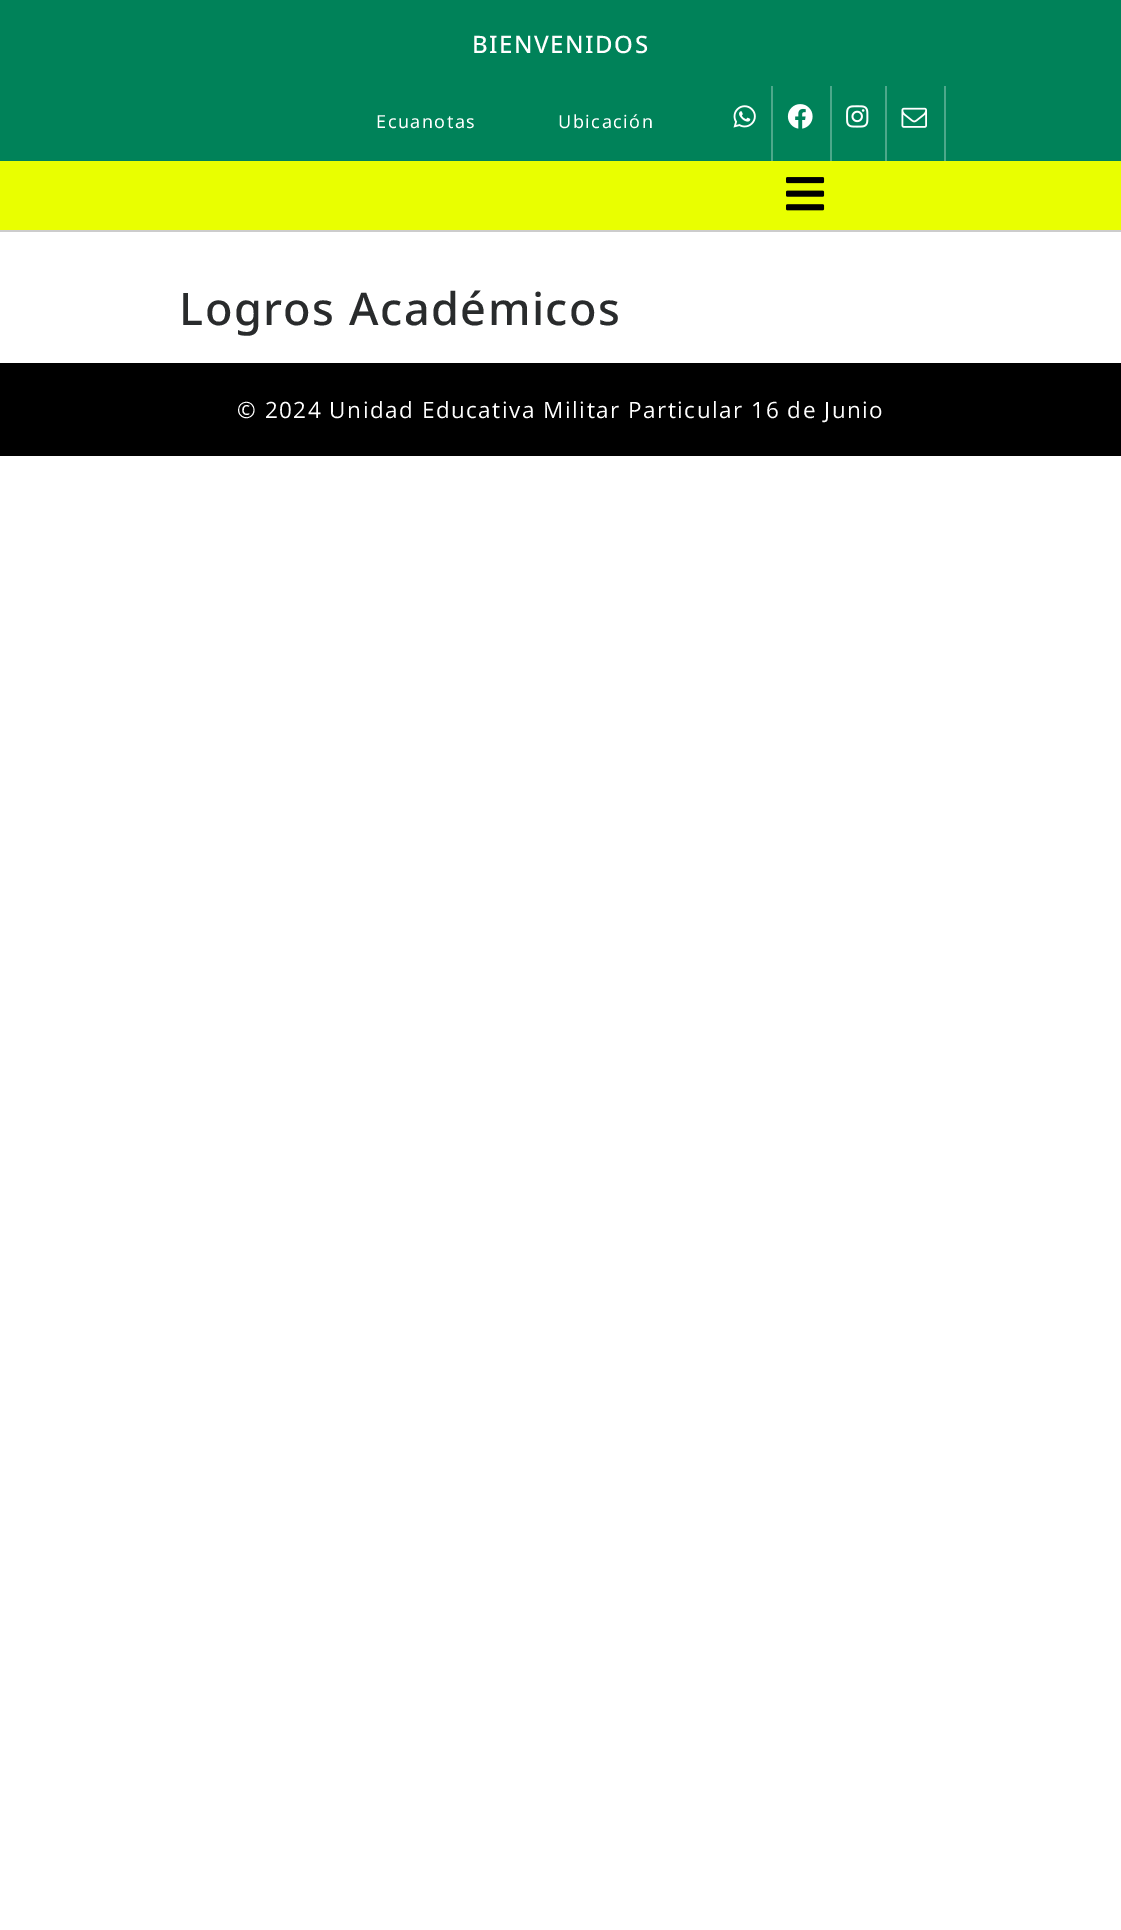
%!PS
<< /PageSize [1121 1930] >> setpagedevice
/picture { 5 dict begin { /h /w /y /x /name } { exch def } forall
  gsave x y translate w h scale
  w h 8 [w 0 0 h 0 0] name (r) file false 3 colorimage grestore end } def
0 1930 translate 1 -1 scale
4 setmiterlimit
1 setgray
0 0 1121 1930 rectfill
0 0.51 0.349 setrgbcolor
0 0 1121 161 rectfill
/NotoSans-Medium [24 0 0 -24 0 0] selectfont
1 setgray
472 53 moveto 1.5 0 (BIENVENIDOS) ashow
/NotoSans-Regular [18 0 0 -18 0 0] selectfont
376 128 moveto 1.5 0 (Ecuanotas) ashow
558 128 moveto 1.5 0 (Ubicación) ashow
(img1.rgb) 733 105 23 23 picture
0.302 0.659 0.545 setrgbcolor
771 86 2 75 rectfill
(img2.rgb) 787 104 26 25 picture
830 86 2 75 rectfill
(img3.rgb) 846 105 23 23 picture
885 86 2 75 rectfill
(img4.rgb) 901 107 26 21 picture
944 86 2 75 rectfill
0.914 1 0 setrgbcolor
0 161 1121 69 rectfill
0.8 setgray
0 230 1121 2 rectfill
(img5.rgb) 786 177 39 34 picture
/NotoSans-Medium [45 0 0 -45 0 0] selectfont
0.161 0.169 0.173 setrgbcolor
179 325 moveto 1.5 0 (Logros Académicos) ashow
0 setgray
0 363 1121 93 rectfill
/OpenSans-Regular [22.5 0 0 -22.5 0 0] selectfont
1 setgray
237 418 moveto 1.5 0 (© 2024 Unidad Educativa Militar Particular 16 de Junio) ashow
showpage
